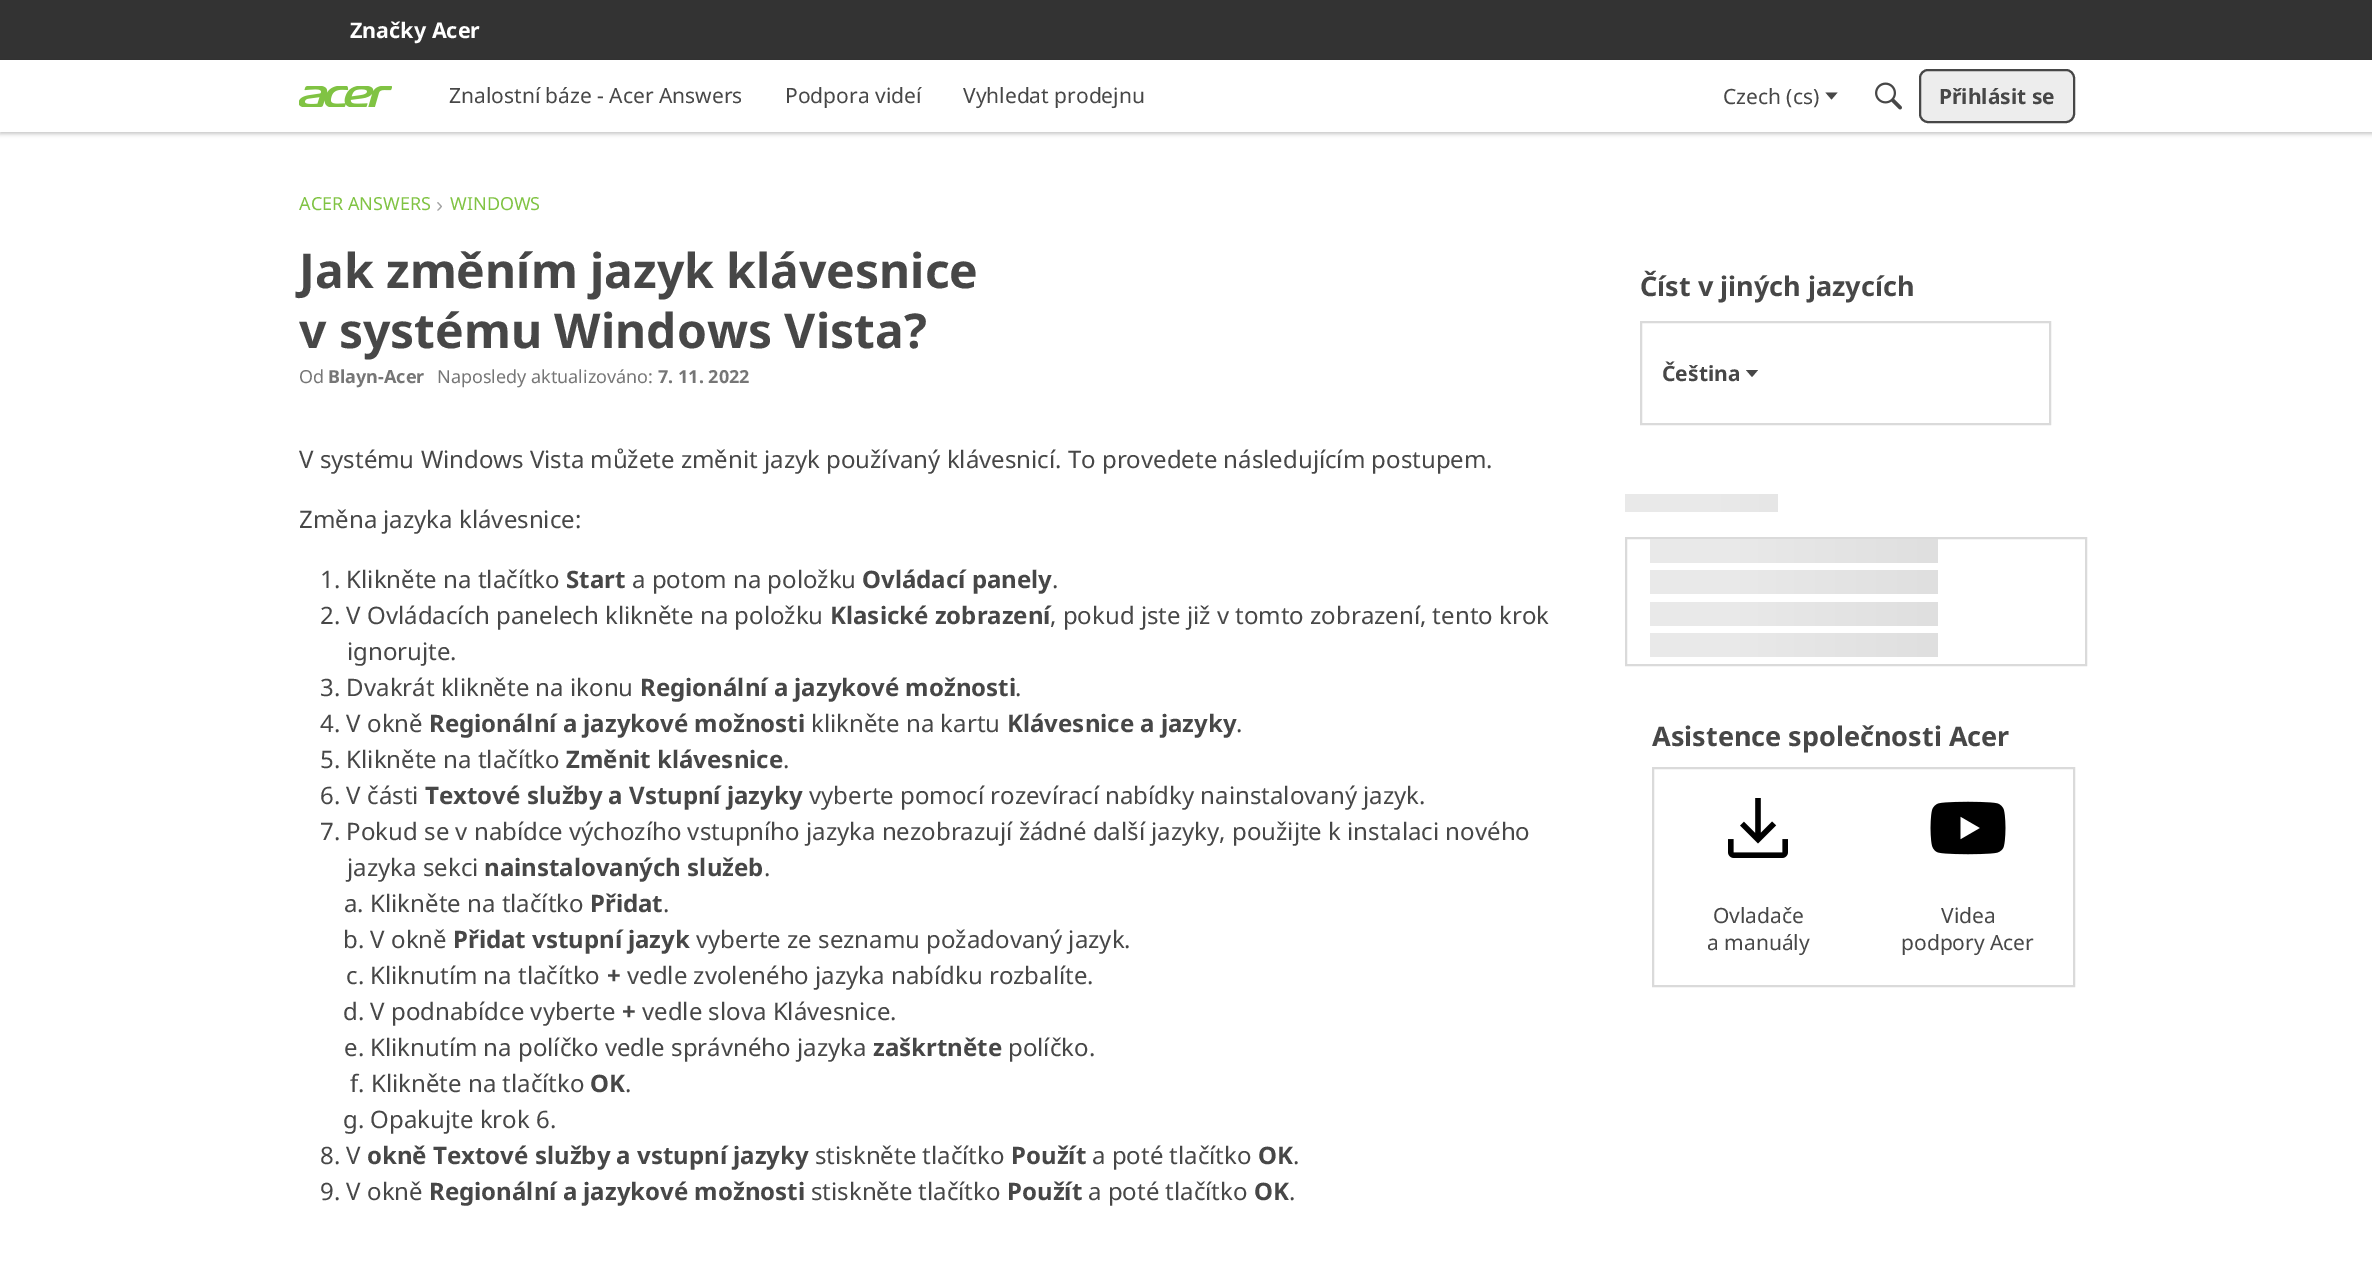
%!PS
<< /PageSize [2372 1264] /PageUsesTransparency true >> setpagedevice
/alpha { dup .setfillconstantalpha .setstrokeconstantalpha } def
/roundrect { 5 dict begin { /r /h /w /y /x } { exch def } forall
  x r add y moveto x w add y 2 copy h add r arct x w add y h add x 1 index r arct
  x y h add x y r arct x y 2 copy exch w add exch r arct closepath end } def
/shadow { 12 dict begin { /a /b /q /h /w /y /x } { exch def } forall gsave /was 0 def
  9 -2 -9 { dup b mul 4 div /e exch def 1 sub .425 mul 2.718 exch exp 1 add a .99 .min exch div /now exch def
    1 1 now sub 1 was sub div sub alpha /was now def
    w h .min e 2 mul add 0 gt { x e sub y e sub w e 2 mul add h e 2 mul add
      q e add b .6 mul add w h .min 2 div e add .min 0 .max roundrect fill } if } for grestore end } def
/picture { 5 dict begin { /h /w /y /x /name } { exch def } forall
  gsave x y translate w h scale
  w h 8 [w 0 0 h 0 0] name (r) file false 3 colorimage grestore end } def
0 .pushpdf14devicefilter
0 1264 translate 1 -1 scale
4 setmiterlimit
1 setgray
0 0 2372 1264 rectfill
0.2 setgray
0 0 2372 60 rectfill
/NotoSans-Bold [21.5 0 0 -21.5 0 0] selectfont
1 setgray
350 38 moveto (Značky Acer) show
gsave
newpath 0 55 moveto 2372 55 lineto 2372 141 lineto 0 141 lineto closepath 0 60 moveto 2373 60 lineto 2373 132 lineto 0 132 lineto closepath eoclip newpath
0 setgray
0 62 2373 72 0 2 0.22 shadow
grestore
(img1.rgb) 299 86 93 21 picture
/NotoSans-Regular [21 0 0 -21 0 0] selectfont
0.278 setgray
449 103 moveto (Znalostní báze - Acer Answers) show
785 103 moveto (Podpora videí) show
963 103 moveto (Vyhledat prodejnu) show
1723 104 moveto (Czech \(cs\)) show
newpath 1825.5 92.5 moveto 1837.5 92.5 lineto 1831.5 99.5 lineto closepath fill
(img2.rgb) 1875 82 27 28 picture
0.929 setgray
1920 70 154 52 8 roundrect gsave fill grestore
0.278 setgray
2 setlinewidth
stroke
/NotoSans-Bold [21 0 0 -21 0 0] selectfont
1939 104 moveto (Přihlásit se) show
/NotoSans-Regular [18 0 0 -18 0 0] selectfont
0.502 0.765 0.263 setrgbcolor
299 210 moveto (ACER ANSWERS) show
/LiberationSans-Regular [21 0 0 -21 0 0] selectfont
0.639 setgray
436 212 moveto (›) show
/NotoSans-Regular [18 0 0 -18 0 0] selectfont
0.502 0.765 0.263 setrgbcolor
450 210 moveto (WINDOWS) show
/NotoSans-Bold [48 0 0 -48 0 0] selectfont
0.278 setgray
299 288 moveto (Jak změním jazyk klávesnice) show
299 348 moveto (v systému Windows Vista?) show
/NotoSans-Regular [18 0 0 -18 0 0] selectfont
0.463 setgray
299 383 moveto (Od) show
/NotoSans-Bold [18 0 0 -18 0 0] selectfont
328 383 moveto (Blayn-Acer) show
/NotoSans-Regular [18 0 0 -18 0 0] selectfont
437 383 moveto (Naposledy aktualizováno:) show
/NotoSans-Bold [18 0 0 -18 0 0] selectfont
658 383 moveto (7. 11. 2022) show
/NotoSans-Regular [24 0 0 -24 0 0] selectfont
0.278 setgray
299 468 moveto (V systému Windows Vista můžete změnit jazyk používaný klávesnicí. To provedete následujícím postupem.) show
299 528 moveto (Změna jazyka klávesnice:) show
320 588 moveto (1. Klikněte na tlačítko) show
/NotoSans-Bold [24 0 0 -24 0 0] selectfont
566 588 moveto (Start) show
/NotoSans-Regular [24 0 0 -24 0 0] selectfont
632 588 moveto (a potom na položku) show
/NotoSans-Bold [24 0 0 -24 0 0] selectfont
862 588 moveto (Ovládací panely) show
/NotoSans-Regular [24 0 0 -24 0 0] selectfont
1052 588 moveto (.) show
320 624 moveto (2. V Ovládacích panelech klikněte na položku) show
/NotoSans-Bold [24 0 0 -24 0 0] selectfont
830 624 moveto (Klasické zobrazení) show
/NotoSans-Regular [24 0 0 -24 0 0] selectfont
1050 624 moveto (, pokud jste již v tomto zobrazení, tento krok) show
347 660 moveto (ignorujte.) show
320 696 moveto (3. Dvakrát klikněte na ikonu) show
/NotoSans-Bold [24 0 0 -24 0 0] selectfont
640 696 moveto (Regionální a jazykové možnosti) show
/NotoSans-Regular [24 0 0 -24 0 0] selectfont
1015 696 moveto (.) show
320 732 moveto (4. V okně) show
/NotoSans-Bold [24 0 0 -24 0 0] selectfont
429 732 moveto (Regionální a jazykové možnosti) show
/NotoSans-Regular [24 0 0 -24 0 0] selectfont
811 732 moveto (klikněte na kartu) show
/NotoSans-Bold [24 0 0 -24 0 0] selectfont
1007 732 moveto (Klávesnice a jazyky) show
/NotoSans-Regular [24 0 0 -24 0 0] selectfont
1236 732 moveto (.) show
320 768 moveto (5. Klikněte na tlačítko) show
/NotoSans-Bold [24 0 0 -24 0 0] selectfont
566 768 moveto (Změnit klávesnice) show
/NotoSans-Regular [24 0 0 -24 0 0] selectfont
783 768 moveto (.) show
320 804 moveto (6. V části) show
/NotoSans-Bold [24 0 0 -24 0 0] selectfont
425 804 moveto (Textové služby a Vstupní jazyky) show
/NotoSans-Regular [24 0 0 -24 0 0] selectfont
809 804 moveto (vyberte pomocí rozevírací nabídky nainstalovaný jazyk.) show
320 840 moveto (7. Pokud se v nabídce výchozího vstupního jazyka nezobrazují žádné další jazyky, použijte k instalaci nového) show
347 876 moveto (jazyka sekci) show
/NotoSans-Bold [24 0 0 -24 0 0] selectfont
484 876 moveto (nainstalovaných služeb) show
/NotoSans-Regular [24 0 0 -24 0 0] selectfont
764 876 moveto (.) show
344 912 moveto (a. Klikněte na tlačítko) show
/NotoSans-Bold [24 0 0 -24 0 0] selectfont
590 912 moveto (Přidat) show
/NotoSans-Regular [24 0 0 -24 0 0] selectfont
663 912 moveto (.) show
343 948 moveto (b. V okně) show
/NotoSans-Bold [24 0 0 -24 0 0] selectfont
453 948 moveto (Přidat vstupní jazyk) show
/NotoSans-Regular [24 0 0 -24 0 0] selectfont
696 948 moveto (vyberte ze seznamu požadovaný jazyk.) show
346 984 moveto (c. Kliknutím na tlačítko) show
/NotoSans-Bold [24 0 0 -24 0 0] selectfont
607 984 moveto (+) show
/NotoSans-Regular [24 0 0 -24 0 0] selectfont
627 984 moveto (vedle zvoleného jazyka nabídku rozbalíte.) show
343 1020 moveto (d. V podnabídce vyberte) show
/NotoSans-Bold [24 0 0 -24 0 0] selectfont
622 1020 moveto (+) show
/NotoSans-Regular [24 0 0 -24 0 0] selectfont
642 1020 moveto (vedle slova Klávesnice.) show
344 1056 moveto (e. Kliknutím na políčko vedle správného jazyka) show
/NotoSans-Bold [24 0 0 -24 0 0] selectfont
873 1056 moveto (zaškrtněte) show
/NotoSans-Regular [24 0 0 -24 0 0] selectfont
1008 1056 moveto (políčko.) show
350 1092 moveto (f. Klikněte na tlačítko) show
/NotoSans-Bold [24 0 0 -24 0 0] selectfont
590 1092 moveto (OK) show
/NotoSans-Regular [24 0 0 -24 0 0] selectfont
625 1092 moveto (.) show
343 1128 moveto (g. Opakujte krok 6.) show
320 1164 moveto (8. V) show
/NotoSans-Bold [24 0 0 -24 0 0] selectfont
367 1164 moveto (okně Textové služby a vstupní jazyky) show
/NotoSans-Regular [24 0 0 -24 0 0] selectfont
815 1164 moveto (stiskněte tlačítko) show
/NotoSans-Bold [24 0 0 -24 0 0] selectfont
1011 1164 moveto (Použít) show
/NotoSans-Regular [24 0 0 -24 0 0] selectfont
1092 1164 moveto (a poté tlačítko) show
/NotoSans-Bold [24 0 0 -24 0 0] selectfont
1258 1164 moveto (OK) show
/NotoSans-Regular [24 0 0 -24 0 0] selectfont
1293 1164 moveto (.) show
320 1200 moveto (9. V okně) show
/NotoSans-Bold [24 0 0 -24 0 0] selectfont
429 1200 moveto (Regionální a jazykové možnosti) show
/NotoSans-Regular [24 0 0 -24 0 0] selectfont
811 1200 moveto (stiskněte tlačítko) show
/NotoSans-Bold [24 0 0 -24 0 0] selectfont
1007 1200 moveto (Použít) show
/NotoSans-Regular [24 0 0 -24 0 0] selectfont
1088 1200 moveto (a poté tlačítko) show
/NotoSans-Bold [24 0 0 -24 0 0] selectfont
1254 1200 moveto (OK) show
/NotoSans-Regular [24 0 0 -24 0 0] selectfont
1289 1200 moveto (.) show
/NotoSans-Bold [27 0 0 -27 0 0] selectfont
1640 296 moveto (Číst v jiných jazycích) show
0.855 setgray
1641 322 409 102 rectstroke
/NotoSans-Bold [21 0 0 -21 0 0] selectfont
0.278 setgray
1662 381 moveto (Čeština) show
newpath 1746 370 moveto 1758 370 lineto 1752 377 lineto closepath fill
gsave 1625 494 153 18 3 roundrect clip newpath
<< /ShadingType 2 /ColorSpace /DeviceRGB /Coords [1625 503 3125 502] /Extend [true true] /Function << /FunctionType 3 /Domain [0 1] /Functions [<< /FunctionType 2 /Domain [0 1] /C0 [0.914 0.914 0.914] /C1 [0.914 0.914 0.914] /N 1 >> << /FunctionType 2 /Domain [0 1] /C0 [0.914 0.914 0.914] /C1 [0.855 0.855 0.855] /N 1 >> << /FunctionType 2 /Domain [0 1] /C0 [0.855 0.855 0.855] /C1 [0.914 0.914 0.914] /N 1 >> << /FunctionType 2 /Domain [0 1] /C0 [0.914 0.914 0.914] /C1 [0.914 0.914 0.914] /N 1 >>] /Bounds [0.06 0.25 0.34] /Encode [0 1 0 1 0 1 0 1] >> >> shfill grestore
0.855 setgray
1626 538 460 127 rectstroke
gsave 1650 539 288 24 3 roundrect clip newpath
<< /ShadingType 2 /ColorSpace /DeviceRGB /Coords [1650 551 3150 550] /Extend [true true] /Function << /FunctionType 3 /Domain [0 1] /Functions [<< /FunctionType 2 /Domain [0 1] /C0 [0.914 0.914 0.914] /C1 [0.914 0.914 0.914] /N 1 >> << /FunctionType 2 /Domain [0 1] /C0 [0.914 0.914 0.914] /C1 [0.855 0.855 0.855] /N 1 >> << /FunctionType 2 /Domain [0 1] /C0 [0.855 0.855 0.855] /C1 [0.914 0.914 0.914] /N 1 >> << /FunctionType 2 /Domain [0 1] /C0 [0.914 0.914 0.914] /C1 [0.914 0.914 0.914] /N 1 >>] /Bounds [0.06 0.25 0.34] /Encode [0 1 0 1 0 1 0 1] >> >> shfill grestore
gsave 1650 570 288 24 3 roundrect clip newpath
<< /ShadingType 2 /ColorSpace /DeviceRGB /Coords [1650 582 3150 582] /Extend [true true] /Function << /FunctionType 3 /Domain [0 1] /Functions [<< /FunctionType 2 /Domain [0 1] /C0 [0.914 0.914 0.914] /C1 [0.914 0.914 0.914] /N 1 >> << /FunctionType 2 /Domain [0 1] /C0 [0.914 0.914 0.914] /C1 [0.855 0.855 0.855] /N 1 >> << /FunctionType 2 /Domain [0 1] /C0 [0.855 0.855 0.855] /C1 [0.914 0.914 0.914] /N 1 >> << /FunctionType 2 /Domain [0 1] /C0 [0.914 0.914 0.914] /C1 [0.914 0.914 0.914] /N 1 >>] /Bounds [0.06 0.25 0.34] /Encode [0 1 0 1 0 1 0 1] >> >> shfill grestore
gsave 1650 602 288 24 3 roundrect clip newpath
<< /ShadingType 2 /ColorSpace /DeviceRGB /Coords [1650 614 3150 613] /Extend [true true] /Function << /FunctionType 3 /Domain [0 1] /Functions [<< /FunctionType 2 /Domain [0 1] /C0 [0.914 0.914 0.914] /C1 [0.914 0.914 0.914] /N 1 >> << /FunctionType 2 /Domain [0 1] /C0 [0.914 0.914 0.914] /C1 [0.855 0.855 0.855] /N 1 >> << /FunctionType 2 /Domain [0 1] /C0 [0.855 0.855 0.855] /C1 [0.914 0.914 0.914] /N 1 >> << /FunctionType 2 /Domain [0 1] /C0 [0.914 0.914 0.914] /C1 [0.914 0.914 0.914] /N 1 >>] /Bounds [0.06 0.25 0.34] /Encode [0 1 0 1 0 1 0 1] >> >> shfill grestore
gsave 1650 633 288 24 3 roundrect clip newpath
<< /ShadingType 2 /ColorSpace /DeviceRGB /Coords [1650 645 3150 645] /Extend [true true] /Function << /FunctionType 3 /Domain [0 1] /Functions [<< /FunctionType 2 /Domain [0 1] /C0 [0.914 0.914 0.914] /C1 [0.914 0.914 0.914] /N 1 >> << /FunctionType 2 /Domain [0 1] /C0 [0.914 0.914 0.914] /C1 [0.855 0.855 0.855] /N 1 >> << /FunctionType 2 /Domain [0 1] /C0 [0.855 0.855 0.855] /C1 [0.914 0.914 0.914] /N 1 >> << /FunctionType 2 /Domain [0 1] /C0 [0.914 0.914 0.914] /C1 [0.914 0.914 0.914] /N 1 >>] /Bounds [0.06 0.25 0.34] /Encode [0 1 0 1 0 1 0 1] >> >> shfill grestore
/NotoSans-Bold [27 0 0 -27 0 0] selectfont
0.278 setgray
1652 746 moveto (Asistence společnosti Acer) show
0.855 setgray
1653 768 421 218 rectstroke
(img3.rgb) 1728 798 60 60 picture
/NotoSans-Regular [21 0 0 -21 0 0] selectfont
0.278 setgray
1713 923 moveto (Ovladače) show
1707 950 moveto (a manuály) show
(img4.rgb) 1930 801 76 54 picture
1941 923 moveto (Videa) show
1901 950 moveto (podpory Acer) show
.poppdf14devicefilter showpage
